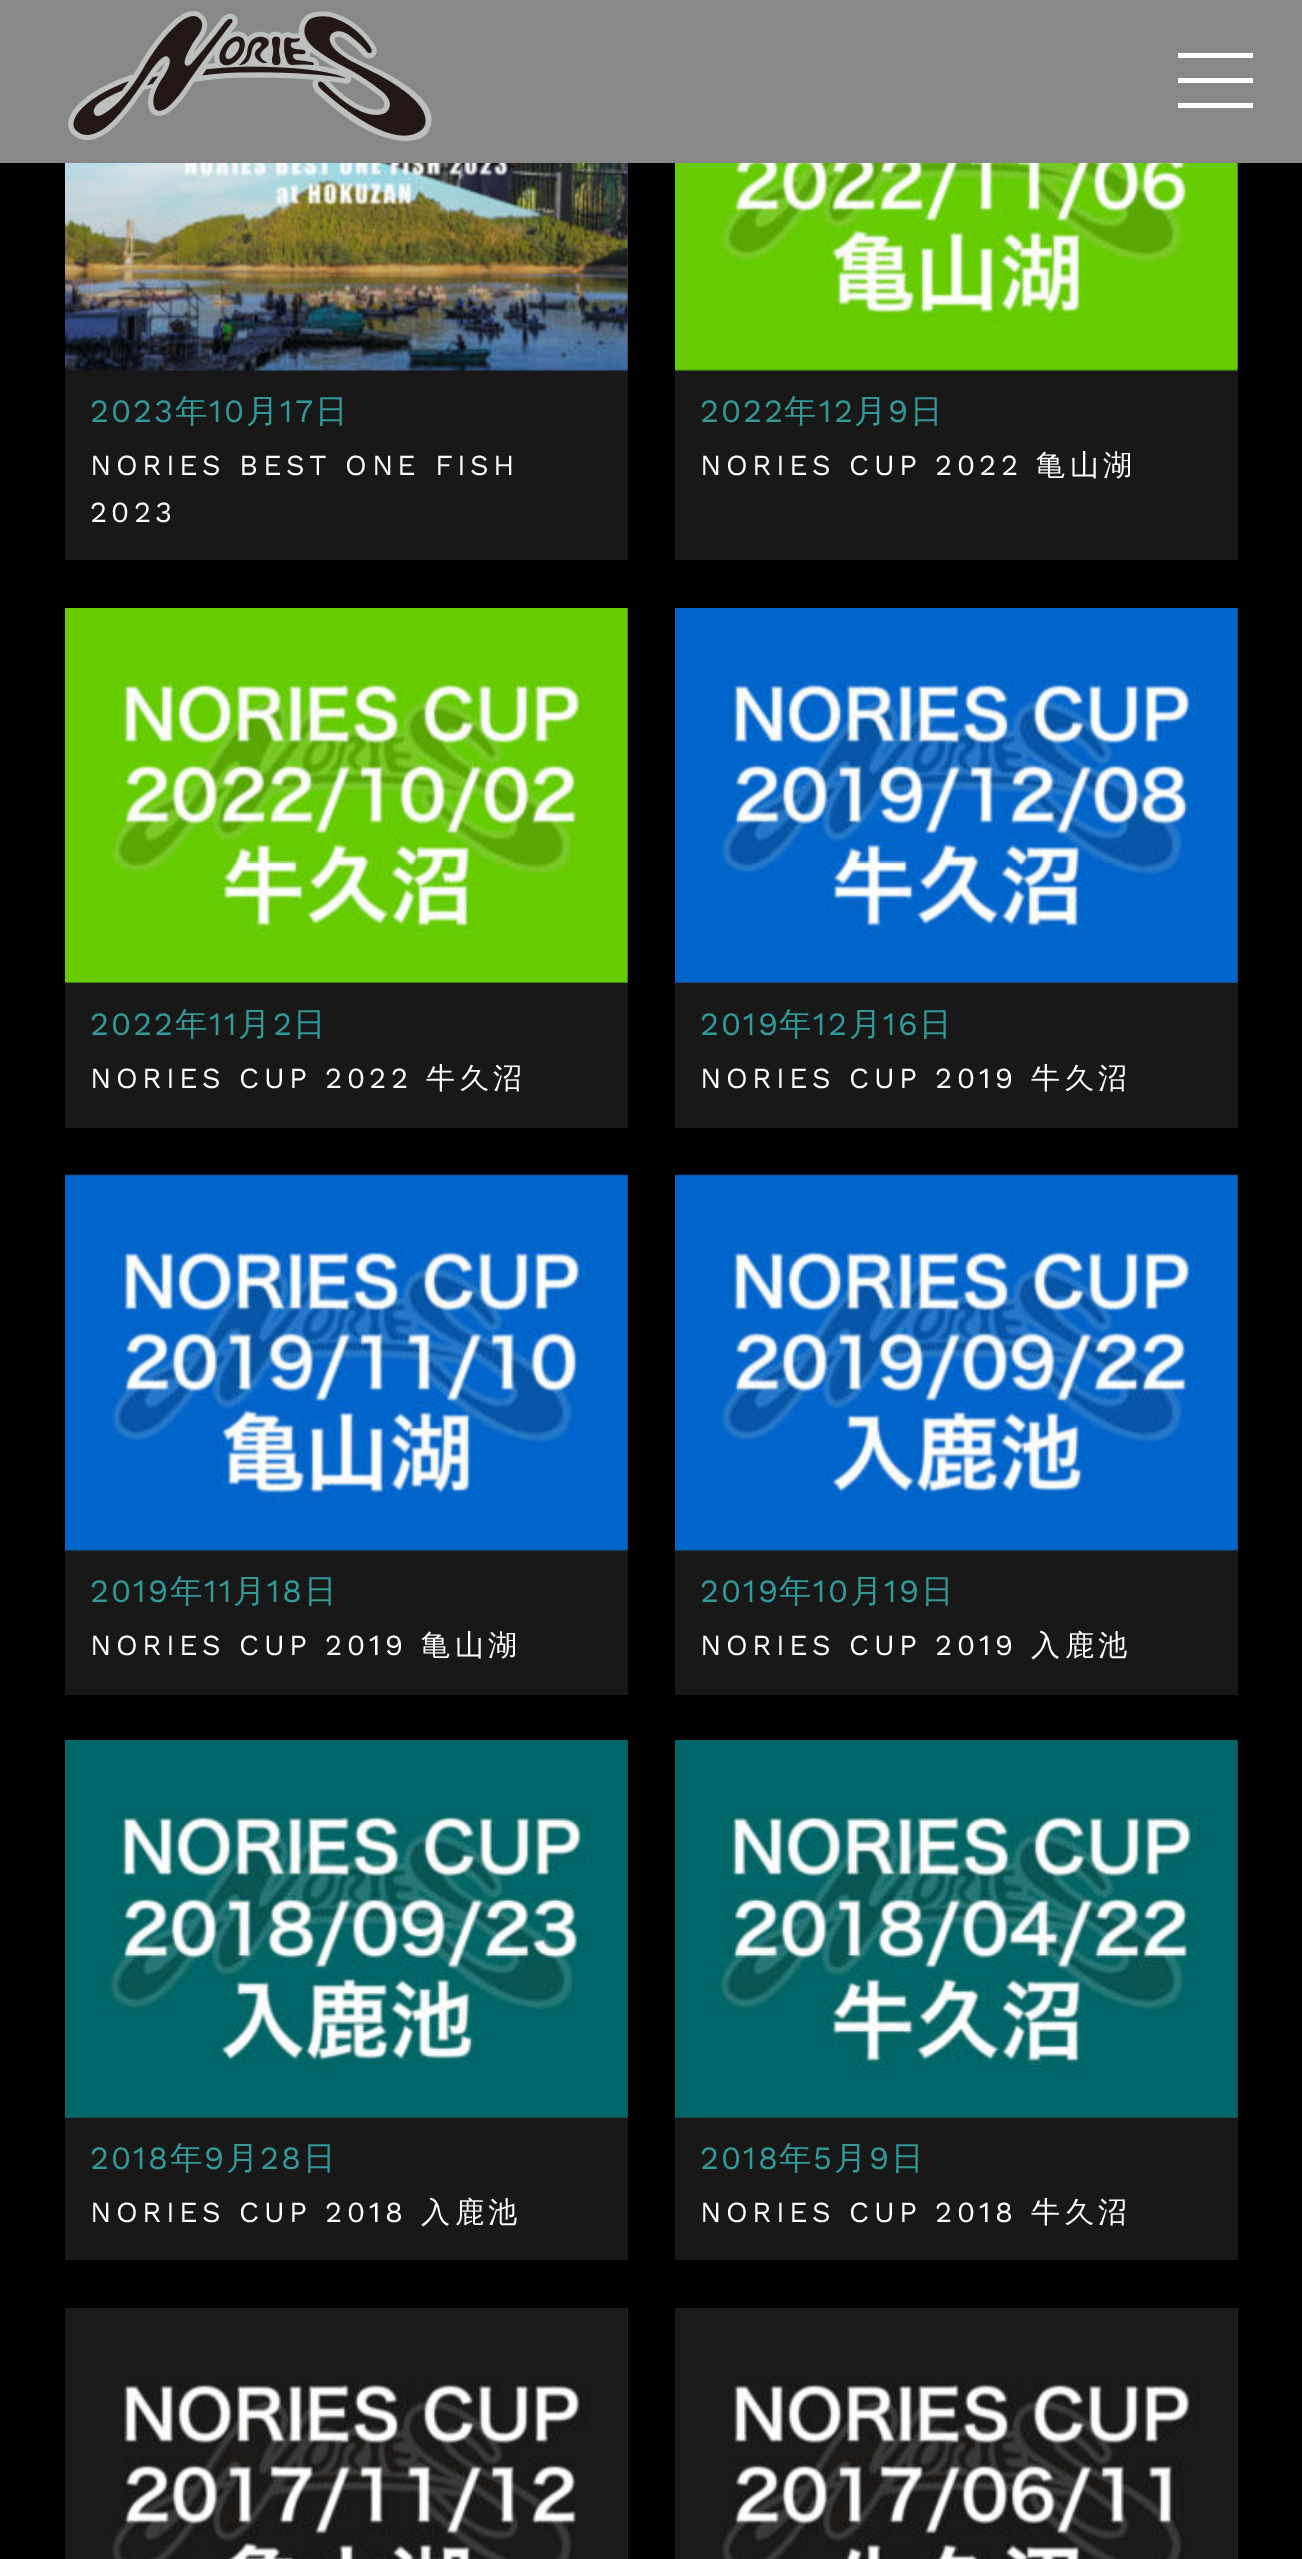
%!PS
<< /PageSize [1302 2559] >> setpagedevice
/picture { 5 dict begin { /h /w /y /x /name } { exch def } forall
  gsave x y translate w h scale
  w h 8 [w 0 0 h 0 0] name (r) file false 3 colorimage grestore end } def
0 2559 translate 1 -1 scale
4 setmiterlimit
0 setgray
0 0 1302 2559 rectfill
0.533 setgray
0 0 1302 163 rectfill
(img1.rgb) 68 11 364 130 picture
1 setgray
1178 53 75 5 rectfill
1178 78 75 5 rectfill
1178 103 75 5 rectfill
0.094 setgray
65 370 563 190 rectfill
0.2 setgray
65 163 563 207 rectfill
(img2.rgb) 65 163 563 208 picture
/WorkSans-Regular [32.5 0 0 -32.5 0 0] selectfont
0.2 0.6 0.6 setrgbcolor
90 422 moveto 2 0 (2023) ashow
/WenQuanYiZenHei-Medium [32.5 0 0 -32.5 0 0] selectfont
175 422 moveto 2 0 (年) ashow
/WorkSans-Regular [32.5 0 0 -32.5 0 0] selectfont
209 422 moveto 2 0 (10) ashow
/WenQuanYiZenHei-Medium [32.5 0 0 -32.5 0 0] selectfont
246 422 moveto 2 0 (月) ashow
/WorkSans-Regular [32.5 0 0 -32.5 0 0] selectfont
280 422 moveto 2 0 (17) ashow
/WenQuanYiZenHei-Medium [32.5 0 0 -32.5 0 0] selectfont
315 422 moveto 2 0 (日) ashow
/WorkSans-Regular [29.2 0 0 -29.2 0 0] selectfont
1 setgray
90 475 moveto 4.4 0 (NORIES BEST ONE FISH) ashow
90 522 moveto 4.4 0 (2023) ashow
0.094 setgray
675 370 563 190 rectfill
0.2 setgray
675 163 563 207 rectfill
(img3.rgb) 675 163 563 208 picture
/WorkSans-Regular [32.5 0 0 -32.5 0 0] selectfont
0.2 0.6 0.6 setrgbcolor
700 422 moveto 2 0 (2022) ashow
/WenQuanYiZenHei-Medium [32.5 0 0 -32.5 0 0] selectfont
784 422 moveto 2 0 (年) ashow
/WorkSans-Regular [32.5 0 0 -32.5 0 0] selectfont
819 422 moveto 2 0 (12) ashow
/WenQuanYiZenHei-Medium [32.5 0 0 -32.5 0 0] selectfont
854 422 moveto 2 0 (月) ashow
/WorkSans-Regular [32.5 0 0 -32.5 0 0] selectfont
888 422 moveto 2 0 (9) ashow
/WenQuanYiZenHei-Medium [32.5 0 0 -32.5 0 0] selectfont
910 422 moveto 2 0 (日) ashow
/WorkSans-Regular [29.2 0 0 -29.2 0 0] selectfont
1 setgray
700 475 moveto 4.4 0 (NORIES CUP 2022) ashow
/WenQuanYiZenHei-Medium [29.2 0 0 -29.2 0 0] selectfont
1036 475 moveto 4.4 0 (亀山湖) ashow
0.094 setgray
65 983 563 145 rectfill
0.2 setgray
65 608 563 375 rectfill
(img4.rgb) 65 608 563 375 picture
/WorkSans-Regular [32.5 0 0 -32.5 0 0] selectfont
0.2 0.6 0.6 setrgbcolor
90 1035 moveto 2 0 (2022) ashow
/WenQuanYiZenHei-Medium [32.5 0 0 -32.5 0 0] selectfont
175 1035 moveto 2 0 (年) ashow
/WorkSans-Regular [32.5 0 0 -32.5 0 0] selectfont
209 1035 moveto 2 0 (11) ashow
/WenQuanYiZenHei-Medium [32.5 0 0 -32.5 0 0] selectfont
238 1035 moveto 2 0 (月) ashow
/WorkSans-Regular [32.5 0 0 -32.5 0 0] selectfont
273 1035 moveto 2 0 (2) ashow
/WenQuanYiZenHei-Medium [32.5 0 0 -32.5 0 0] selectfont
293 1035 moveto 2 0 (日) ashow
/WorkSans-Regular [29.2 0 0 -29.2 0 0] selectfont
1 setgray
90 1088 moveto 4.4 0 (NORIES CUP 2022) ashow
/WenQuanYiZenHei-Medium [29.2 0 0 -29.2 0 0] selectfont
426 1088 moveto 4.4 0 (牛久沼) ashow
0.094 setgray
675 983 563 145 rectfill
0.2 setgray
675 608 563 375 rectfill
(img5.rgb) 675 608 563 375 picture
/WorkSans-Regular [32.5 0 0 -32.5 0 0] selectfont
0.2 0.6 0.6 setrgbcolor
700 1035 moveto 2 0 (2019) ashow
/WenQuanYiZenHei-Medium [32.5 0 0 -32.5 0 0] selectfont
779 1035 moveto 2 0 (年) ashow
/WorkSans-Regular [32.5 0 0 -32.5 0 0] selectfont
813 1035 moveto 2 0 (12) ashow
/WenQuanYiZenHei-Medium [32.5 0 0 -32.5 0 0] selectfont
849 1035 moveto 2 0 (月) ashow
/WorkSans-Regular [32.5 0 0 -32.5 0 0] selectfont
883 1035 moveto 2 0 (16) ashow
/WenQuanYiZenHei-Medium [32.5 0 0 -32.5 0 0] selectfont
919 1035 moveto 2 0 (日) ashow
/WorkSans-Regular [29.2 0 0 -29.2 0 0] selectfont
1 setgray
700 1088 moveto 4.4 0 (NORIES CUP 2019) ashow
/WenQuanYiZenHei-Medium [29.2 0 0 -29.2 0 0] selectfont
1031 1088 moveto 4.4 0 (牛久沼) ashow
0.094 setgray
65 1550 563 145 rectfill
0.2 setgray
65 1175 563 375 rectfill
(img6.rgb) 65 1174 563 377 picture
/WorkSans-Regular [32.5 0 0 -32.5 0 0] selectfont
0.2 0.6 0.6 setrgbcolor
90 1602 moveto 2 0 (2019) ashow
/WenQuanYiZenHei-Medium [32.5 0 0 -32.5 0 0] selectfont
170 1602 moveto 2 0 (年) ashow
/WorkSans-Regular [32.5 0 0 -32.5 0 0] selectfont
204 1602 moveto 2 0 (11) ashow
/WenQuanYiZenHei-Medium [32.5 0 0 -32.5 0 0] selectfont
233 1602 moveto 2 0 (月) ashow
/WorkSans-Regular [32.5 0 0 -32.5 0 0] selectfont
267 1602 moveto 2 0 (18) ashow
/WenQuanYiZenHei-Medium [32.5 0 0 -32.5 0 0] selectfont
304 1602 moveto 2 0 (日) ashow
/WorkSans-Regular [29.2 0 0 -29.2 0 0] selectfont
1 setgray
90 1655 moveto 4.4 0 (NORIES CUP 2019) ashow
/WenQuanYiZenHei-Medium [29.2 0 0 -29.2 0 0] selectfont
421 1655 moveto 4.4 0 (亀山湖) ashow
0.094 setgray
675 1550 563 145 rectfill
0.2 setgray
675 1175 563 375 rectfill
(img7.rgb) 675 1174 563 377 picture
/WorkSans-Regular [32.5 0 0 -32.5 0 0] selectfont
0.2 0.6 0.6 setrgbcolor
700 1602 moveto 2 0 (2019) ashow
/WenQuanYiZenHei-Medium [32.5 0 0 -32.5 0 0] selectfont
779 1602 moveto 2 0 (年) ashow
/WorkSans-Regular [32.5 0 0 -32.5 0 0] selectfont
813 1602 moveto 2 0 (10) ashow
/WenQuanYiZenHei-Medium [32.5 0 0 -32.5 0 0] selectfont
850 1602 moveto 2 0 (月) ashow
/WorkSans-Regular [32.5 0 0 -32.5 0 0] selectfont
884 1602 moveto 2 0 (19) ashow
/WenQuanYiZenHei-Medium [32.5 0 0 -32.5 0 0] selectfont
921 1602 moveto 2 0 (日) ashow
/WorkSans-Regular [29.2 0 0 -29.2 0 0] selectfont
1 setgray
700 1655 moveto 4.4 0 (NORIES CUP 2019) ashow
/WenQuanYiZenHei-Medium [29.2 0 0 -29.2 0 0] selectfont
1031 1655 moveto 4.4 0 (入鹿池) ashow
0.094 setgray
65 2118 563 142 rectfill
0.2 setgray
65 1740 563 378 rectfill
(img8.rgb) 65 1740 563 378 picture
/WorkSans-Regular [32.5 0 0 -32.5 0 0] selectfont
0.2 0.6 0.6 setrgbcolor
90 2169 moveto 2 0 (2018) ashow
/WenQuanYiZenHei-Medium [32.5 0 0 -32.5 0 0] selectfont
170 2169 moveto 2 0 (年) ashow
/WorkSans-Regular [32.5 0 0 -32.5 0 0] selectfont
204 2169 moveto 2 0 (9) ashow
/WenQuanYiZenHei-Medium [32.5 0 0 -32.5 0 0] selectfont
226 2169 moveto 2 0 (月) ashow
/WorkSans-Regular [32.5 0 0 -32.5 0 0] selectfont
260 2169 moveto 2 0 (28) ashow
/WenQuanYiZenHei-Medium [32.5 0 0 -32.5 0 0] selectfont
303 2169 moveto 2 0 (日) ashow
/WorkSans-Regular [29.2 0 0 -29.2 0 0] selectfont
1 setgray
90 2222 moveto 4.4 0 (NORIES CUP 2018) ashow
/WenQuanYiZenHei-Medium [29.2 0 0 -29.2 0 0] selectfont
421 2222 moveto 4.4 0 (入鹿池) ashow
0.094 setgray
675 2118 563 142 rectfill
0.2 setgray
675 1740 563 378 rectfill
(img9.rgb) 675 1740 563 378 picture
/WorkSans-Regular [32.5 0 0 -32.5 0 0] selectfont
0.2 0.6 0.6 setrgbcolor
700 2169 moveto 2 0 (2018) ashow
/WenQuanYiZenHei-Medium [32.5 0 0 -32.5 0 0] selectfont
779 2169 moveto 2 0 (年) ashow
/WorkSans-Regular [32.5 0 0 -32.5 0 0] selectfont
813 2169 moveto 2 0 (5) ashow
/WenQuanYiZenHei-Medium [32.5 0 0 -32.5 0 0] selectfont
834 2169 moveto 2 0 (月) ashow
/WorkSans-Regular [32.5 0 0 -32.5 0 0] selectfont
869 2169 moveto 2 0 (9) ashow
/WenQuanYiZenHei-Medium [32.5 0 0 -32.5 0 0] selectfont
891 2169 moveto 2 0 (日) ashow
/WorkSans-Regular [29.2 0 0 -29.2 0 0] selectfont
1 setgray
700 2222 moveto 4.4 0 (NORIES CUP 2018) ashow
/WenQuanYiZenHei-Medium [29.2 0 0 -29.2 0 0] selectfont
1031 2222 moveto 4.4 0 (牛久沼) ashow
0.2 setgray
627 2308 1 251 rectfill
(img10.rgb) 65 2308 563 251 picture
1237 2308 1 251 rectfill
(img11.rgb) 675 2308 563 251 picture
showpage
